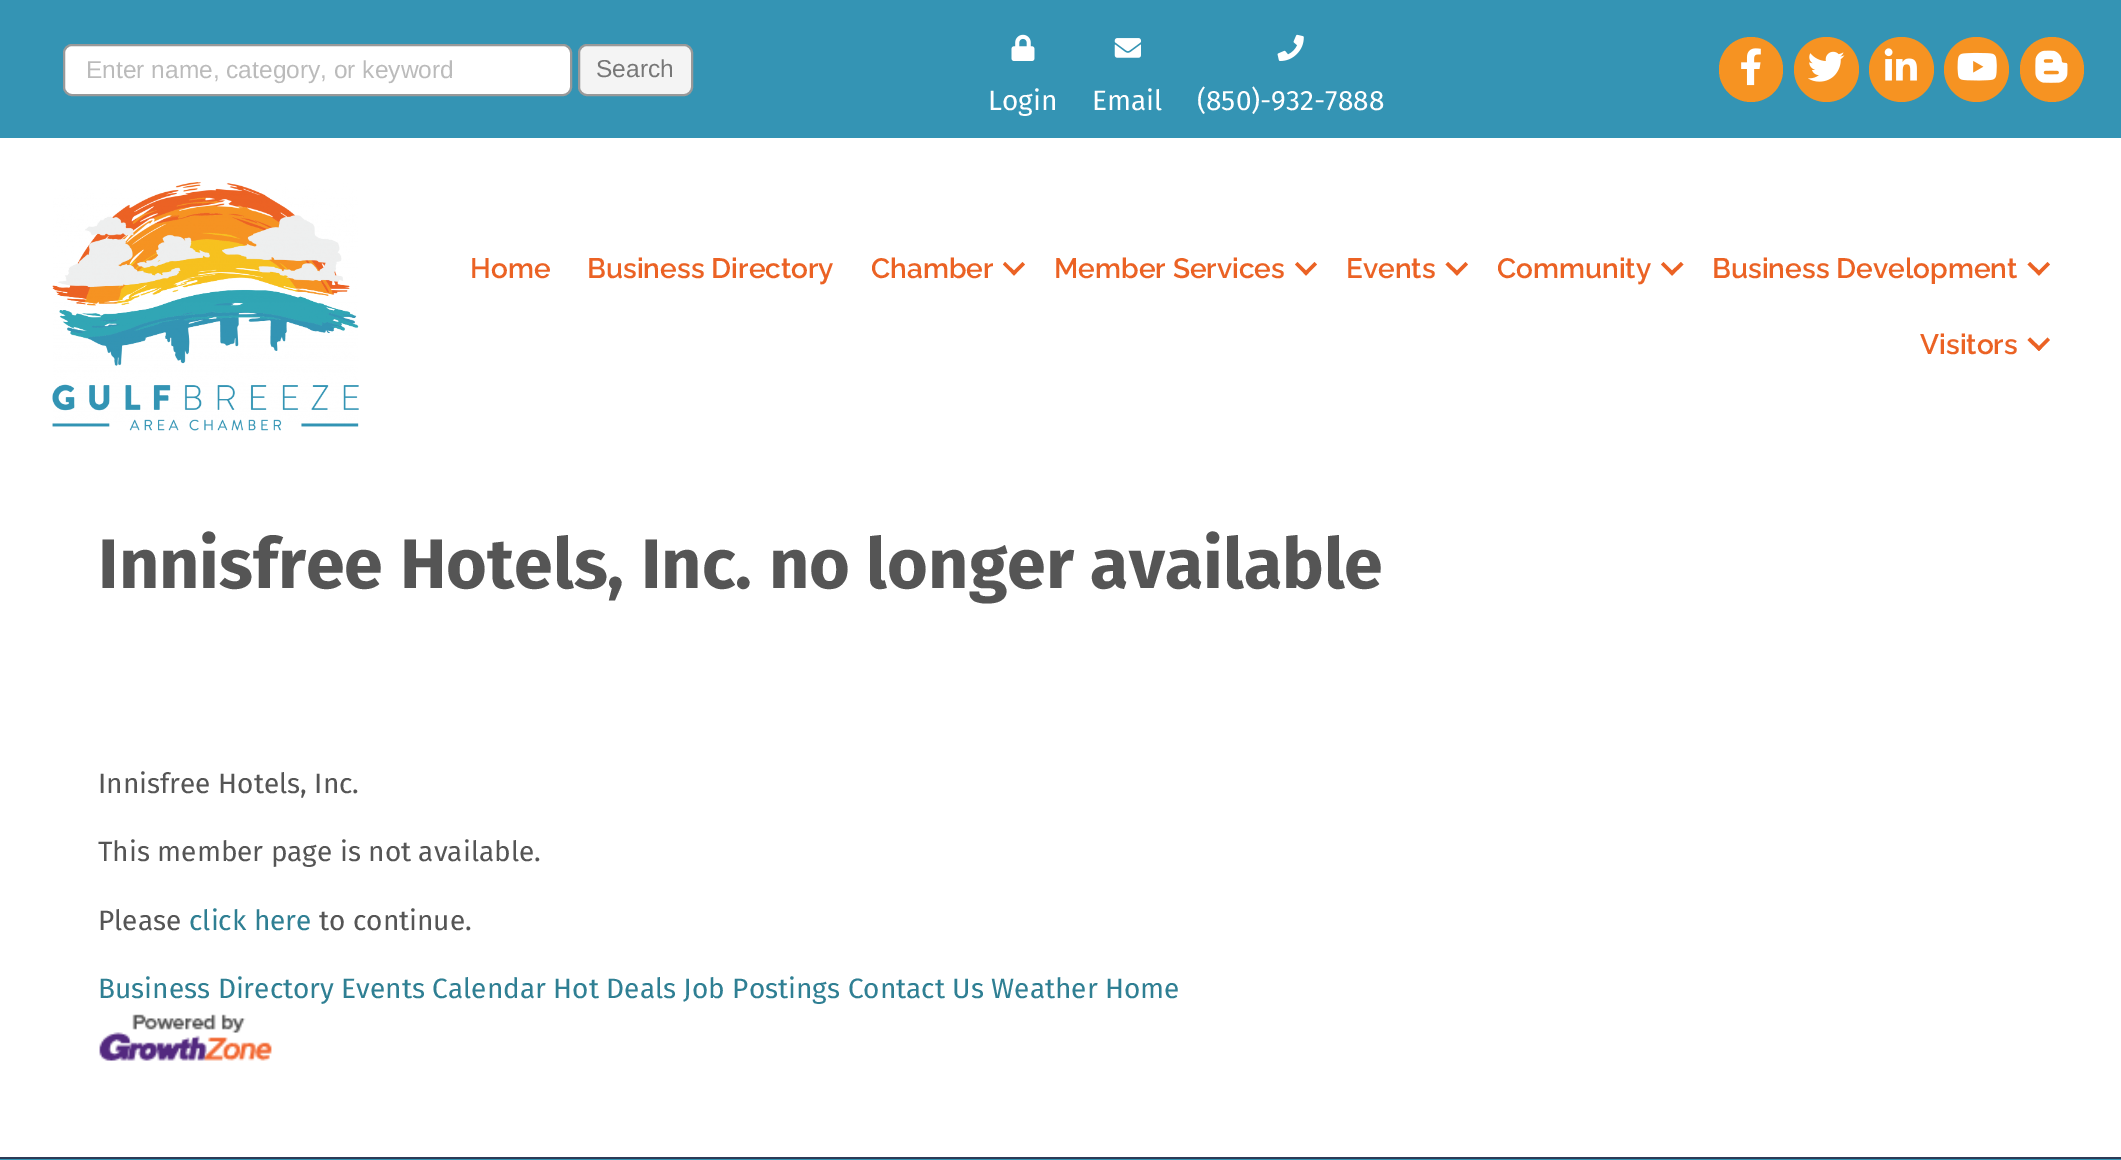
%!PS
<< /PageSize [2121 1160] >> setpagedevice
/roundrect { 5 dict begin { /r /h /w /y /x } { exch def } forall
  x r add y moveto x w add y 2 copy h add r arct x w add y h add x 1 index r arct
  x y h add x y r arct x y 2 copy exch w add exch r arct closepath end } def
/picture { 5 dict begin { /h /w /y /x /name } { exch def } forall
  gsave x y translate w h scale
  w h 8 [w 0 0 h 0 0] name (r) file false 3 colorimage grestore end } def
0 1160 translate 1 -1 scale
4 setmiterlimit
1 setgray
0 0 2121 1160 rectfill
0.204 0.58 0.706 setrgbcolor
0 0 2121 138 rectfill
1 setgray
64 45 507 50 8 roundrect gsave fill grestore
0.6 setgray
2 setlinewidth
stroke
/LiberationSans-Regular [24.5 0 0 -24.5 0 0] selectfont
0.733 setgray
86 78 moveto (Enter name, category, or keyword) show
0.957 setgray
579 45 113 50 8 roundrect gsave fill grestore
0.6 setgray
stroke
0.467 setgray
596 77 moveto (Search) show
0.965 0.576 0.133 setrgbcolor
1719 37 64 65 32 roundrect fill
(img1.rgb) 1741 48 20 38 picture
newpath 1826.5 69.5 32.5 0 360 arc closepath fill
(img2.rgb) 1808 51 37 31 picture
newpath 1901.5 69.5 32.5 0 360 arc closepath fill
(img3.rgb) 1884 48 33 33 picture
newpath 1976.5 69.5 32.5 0 360 arc closepath fill
(img4.rgb) 1957 52 40 29 picture
2020 37 64 65 32 roundrect fill
(img5.rgb) 2035 50 33 33 picture
(img6.rgb) 1011 34 24 27 picture
/FiraSans-Regular [28 0 0 -28 0 0] selectfont
1 setgray
988 110 moveto (Login) show
(img7.rgb) 1114 38 27 20 picture
1092 110 moveto (Email) show
(img8.rgb) 1277 34 27 27 picture
1197 110 moveto (\(850\)-932-7888) show
(img9.rgb) 52 182 307 249 picture
/Raleway-SemiBold [28 0 0 -28 0 0] selectfont
0.922 0.384 0.141 setrgbcolor
470 278 moveto (Home) show
587 278 moveto (Business Directory) show
871 278 moveto (Chamber) show
newpath 1022.5 262 moveto 1025 264.5 lineto 1014 275.5 lineto 1011.5 273 lineto closepath fill
newpath 1005 262 moveto 1016.5 273 lineto 1014 275.5 lineto 1003 264.5 lineto closepath fill
1054 278 moveto (Member Services) show
newpath 1314.5 262 moveto 1317 264.5 lineto 1306 275.5 lineto 1303.5 273 lineto closepath fill
newpath 1297.5 262 moveto 1308.5 273 lineto 1306 275.5 lineto 1295 264.5 lineto closepath fill
1346 278 moveto (Events) show
newpath 1465.5 262 moveto 1468 264.5 lineto 1457 275.5 lineto 1454.5 273 lineto closepath fill
newpath 1448 262 moveto 1459.5 273 lineto 1457 275.5 lineto 1445.5 264.5 lineto closepath fill
1497 278 moveto (Community) show
newpath 1681 262 moveto 1683.5 264.5 lineto 1672 275.5 lineto 1669.5 273 lineto closepath fill
newpath 1663.5 262 moveto 1674.5 273 lineto 1672 275.5 lineto 1661 264.5 lineto closepath fill
1712 278 moveto (Business Development) show
newpath 2047.5 262 moveto 2050 264.5 lineto 2039 275.5 lineto 2036.5 273 lineto closepath fill
newpath 2030 262 moveto 2041.5 273 lineto 2039 275.5 lineto 2027.5 264.5 lineto closepath fill
1920 354 moveto (Visitors) show
newpath 2047.5 337.5 moveto 2050 340 lineto 2039 351 lineto 2036.5 348.5 lineto closepath fill
newpath 2030 337.5 moveto 2041.5 348.5 lineto 2039 351 lineto 2027.5 340 lineto closepath fill
/FiraSans-Bold [70 0 0 -70 0 0] selectfont
0.333 setgray
98 588 moveto (Innisfree Hotels, Inc. no longer available) show
/FiraSans-Regular [28 0 0 -28 0 0] selectfont
98 793 moveto (Innisfree Hotels, Inc.) show
98 861 moveto (This member page is not available.) show
98 930 moveto (Please) show
0.184 0.498 0.576 setrgbcolor
189 930 moveto (click here) show
0.333 setgray
319 930 moveto (to continue.) show
0.184 0.498 0.576 setrgbcolor
98 998 moveto (Business Directory Events Calendar Hot Deals Job Postings Contact Us Weather Home) show
(img10.rgb) 99 1014 173 47 picture
0.204 0.58 0.706 setrgbcolor
0 1159 2121 1 rectfill
0.173 0.227 0.337 setrgbcolor
0 1157 2121 2 rectfill
showpage
